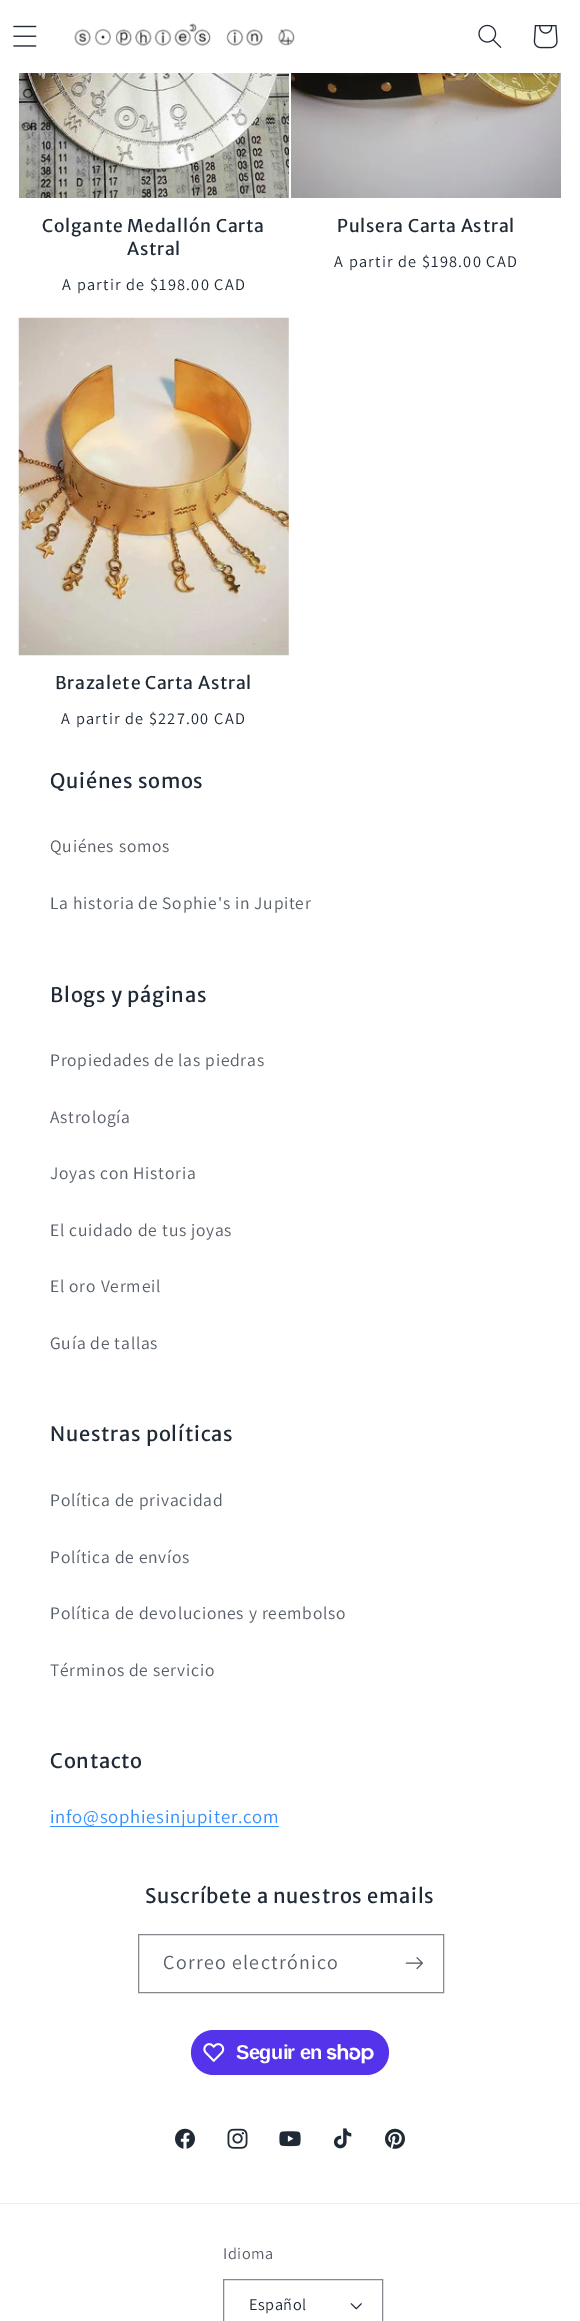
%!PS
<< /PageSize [580 2321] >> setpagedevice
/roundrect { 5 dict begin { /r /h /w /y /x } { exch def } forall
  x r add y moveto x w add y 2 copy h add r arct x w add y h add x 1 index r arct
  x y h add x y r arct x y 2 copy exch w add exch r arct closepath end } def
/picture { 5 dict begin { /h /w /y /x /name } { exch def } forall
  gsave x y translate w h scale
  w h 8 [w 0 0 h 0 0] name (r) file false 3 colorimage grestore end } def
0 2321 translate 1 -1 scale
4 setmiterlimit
1 setgray
0 0 580 2321 rectfill
(img1.rgb) 13 25 24 22 picture
(img2.rgb) 74 23 221 23 picture
(img3.rgb) 478 24 24 24 picture
(img4.rgb) 533 25 25 24 picture
(img5.rgb) 19 73 270 125 picture
/MerriweatherSans-Regular [17.5 0 0 -17.5 0 0] selectfont
0.125 0.165 0.212 setrgbcolor
42 232 moveto 0.75 0 (Colgante Medallón Carta) ashow
127 255 moveto 0.75 0 (Astral) ashow
/Assistant-Regular [16.25 0 0 -16.25 0 0] selectfont
62 290 moveto 1.25 0 (A partir de $198.00 CAD) ashow
(img6.rgb) 291 73 270 125 picture
/MerriweatherSans-Regular [17.5 0 0 -17.5 0 0] selectfont
337 232 moveto 0.75 0 (Pulsera Carta Astral) ashow
/Assistant-Regular [16.25 0 0 -16.25 0 0] selectfont
334 267 moveto 1.25 0 (A partir de $198.00 CAD) ashow
(img7.rgb) 18 317 271 339 picture
/MerriweatherSans-Regular [17.5 0 0 -17.5 0 0] selectfont
55 689 moveto 0.75 0 (Brazalete Carta Astral) ashow
/Assistant-Regular [16.25 0 0 -16.25 0 0] selectfont
61 724 moveto 1.25 0 (A partir de $227.00 CAD) ashow
/MerriweatherSans-Regular [20 0 0 -20 0 0] selectfont
50 788 moveto 0.75 0 (Quiénes somos) ashow
/Assistant-Regular [17.5 0 0 -17.5 0 0] selectfont
0.345 0.373 0.408 setrgbcolor
50 852 moveto 0.75 0 (Quiénes somos) ashow
50 909 moveto 0.75 0 (La historia de Sophie's in Jupiter) ashow
/MerriweatherSans-Regular [20 0 0 -20 0 0] selectfont
0.125 0.165 0.212 setrgbcolor
50 1002 moveto 0.75 0 (Blogs y páginas) ashow
/Assistant-Regular [17.5 0 0 -17.5 0 0] selectfont
0.345 0.373 0.408 setrgbcolor
50 1066 moveto 0.75 0 (Propiedades de las piedras) ashow
50 1123 moveto 0.75 0 (Astrología) ashow
50 1179 moveto 0.75 0 (Joyas con Historia) ashow
50 1236 moveto 0.75 0 (El cuidado de tus joyas) ashow
50 1292 moveto 0.75 0 (El oro Vermeil) ashow
50 1349 moveto 0.75 0 (Guía de tallas) ashow
/MerriweatherSans-Regular [20 0 0 -20 0 0] selectfont
0.125 0.165 0.212 setrgbcolor
50 1441 moveto 0.75 0 (Nuestras políticas) ashow
/Assistant-Regular [17.5 0 0 -17.5 0 0] selectfont
0.345 0.373 0.408 setrgbcolor
50 1506 moveto 0.75 0 (Política de privacidad) ashow
50 1563 moveto 0.75 0 (Política de envíos) ashow
50 1619 moveto 0.75 0 (Política de devoluciones y reembolso) ashow
50 1676 moveto 0.75 0 (Términos de servicio) ashow
/MerriweatherSans-Regular [20 0 0 -20 0 0] selectfont
0.125 0.165 0.212 setrgbcolor
50 1768 moveto 0.75 0 (Contacto) ashow
0.212 0.569 1 setrgbcolor
50 1826 229 1 rectfill
/Assistant-Regular [18.75 0 0 -18.75 0 0] selectfont
50 1823 moveto 0.75 0 (info@sophiesinjupiter.com) ashow
/MerriweatherSans-Regular [20 0 0 -20 0 0] selectfont
0.125 0.165 0.212 setrgbcolor
145 1903 moveto 0.75 0 (Suscríbete a nuestros emails) ashow
0.518 0.541 0.565 setrgbcolor
138.5 1934.5 305 58 rectstroke
/Assistant-Regular [20 0 0 -20 0 0] selectfont
0.345 0.373 0.408 setrgbcolor
163 1969 moveto 1.25 0 (Correo electrónico) ashow
(img8.rgb) 405 1957 18 13 picture
0.329 0.2 0.922 setrgbcolor
191 2030 198 45 22.5 roundrect fill
(img9.rgb) 203 2043 22 19 picture
/LiberationSans-Bold [20 0 0 -20 0 0] selectfont
1 setgray
236 2059 moveto -0.6 0 (Seguir en) ashow
(img10.rgb) 326 2044 48 20 picture
(img11.rgb) 175 2128 20 21 picture
(img12.rgb) 227 2128 21 21 picture
(img13.rgb) 279 2131 22 16 picture
(img14.rgb) 333 2128 19 21 picture
(img15.rgb) 385 2128 20 21 picture
0.929 0.933 0.937 setrgbcolor
0 2203 580 1 rectfill
/Assistant-Regular [16.25 0 0 -16.25 0 0] selectfont
0.345 0.373 0.408 setrgbcolor
223 2259 moveto 0.5 0 (Idioma) ashow
(img16.rgb) 350 2303 12 7 picture
0.518 0.541 0.565 setrgbcolor
223.5 2279.5 159 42 rectstroke
0.125 0.165 0.212 setrgbcolor
249 2310 moveto 0.5 0 (Español) ashow
showpage
